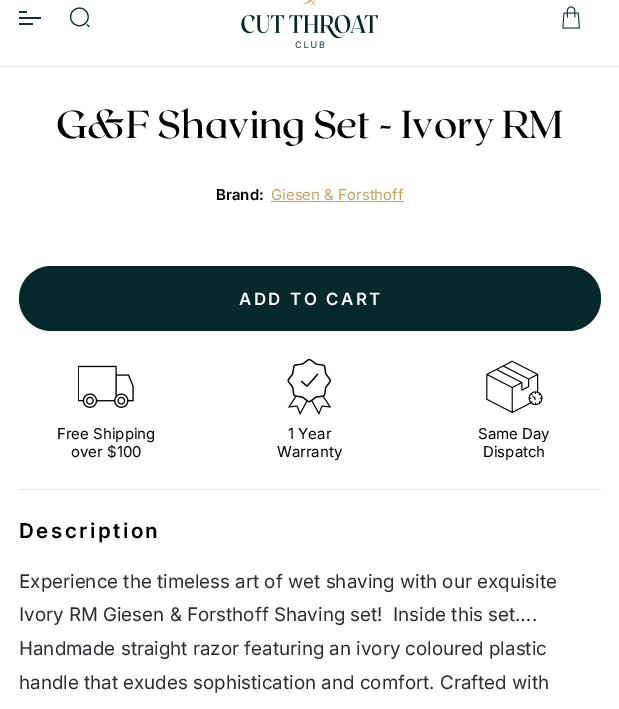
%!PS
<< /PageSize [619 709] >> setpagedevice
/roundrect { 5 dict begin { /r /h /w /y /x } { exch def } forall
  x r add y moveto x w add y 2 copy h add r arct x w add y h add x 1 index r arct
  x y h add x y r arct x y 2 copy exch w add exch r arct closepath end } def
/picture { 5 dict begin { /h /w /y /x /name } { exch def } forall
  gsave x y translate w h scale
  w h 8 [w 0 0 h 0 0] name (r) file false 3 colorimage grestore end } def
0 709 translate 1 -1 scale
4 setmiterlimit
1 setgray
0 0 619 709 rectfill
0.918 setgray
0 66 619 1 rectfill
0.071 0.204 0.212 setrgbcolor
19 17 22 2 rectfill
19 11 8 2 rectfill
19 23 14 2 rectfill
(img1.rgb) 69 7 21 21 picture
(img2.rgb) 241 0 137 48 picture
(img3.rgb) 562 6 18 23 picture
/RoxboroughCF-Medium [38.75 0 0 -38.75 0 0] selectfont
0 setgray
56 138 moveto (G&F Shaving Set - Ivory RM) show
/Inter-SemiBold [15 0 0 -15 0 0] selectfont
216 200 moveto (Brand:) show
/Inter-Regular [15 0 0 -15 0 0] selectfont
0.784 0.624 0.373 setrgbcolor
271 200 moveto (Giesen & Forsthoff) show
271 201 133 1 rectfill
0.02 0.161 0.169 setrgbcolor
19 266 582 65 32.5 roundrect fill
/Inter-SemiBold [16.9 0 0 -16.9 0 0] selectfont
1 setgray
239 305 moveto 2.5 0 (ADD TO CART) ashow
(img4.rgb) 78 365 56 43 picture
/Inter-Regular [15 0 0 -15 0 0] selectfont
0 setgray
57 439 moveto (Free Shipping) show
71 457 moveto (over $100) show
(img5.rgb) 287 359 45 56 picture
288 439 moveto (1 Year) show
277 457 moveto (Warranty) show
(img6.rgb) 486 360 57 53 picture
478 439 moveto (Same Day) show
483 457 moveto (Dispatch) show
0.918 setgray
19 489 582 1 rectfill
/Inter-SemiBold [20.5 0 0 -20.5 0 0] selectfont
0 setgray
19 538 moveto 2.5 0 (Description) ashow
/Inter-Regular [18.75 0 0 -18.75 0 0] selectfont
0.165 0.176 0.192 setrgbcolor
19 588 moveto (Experience the timeless art of wet shaving with our exquisite) show
19 621 moveto (Ivory RM Giesen & Forsthoff Shaving set!  Inside this set….) show
19 655 moveto (Handmade straight razor featuring an ivory coloured plastic) show
19 689 moveto (handle that exudes sophistication and comfort. Crafted with) show
showpage
